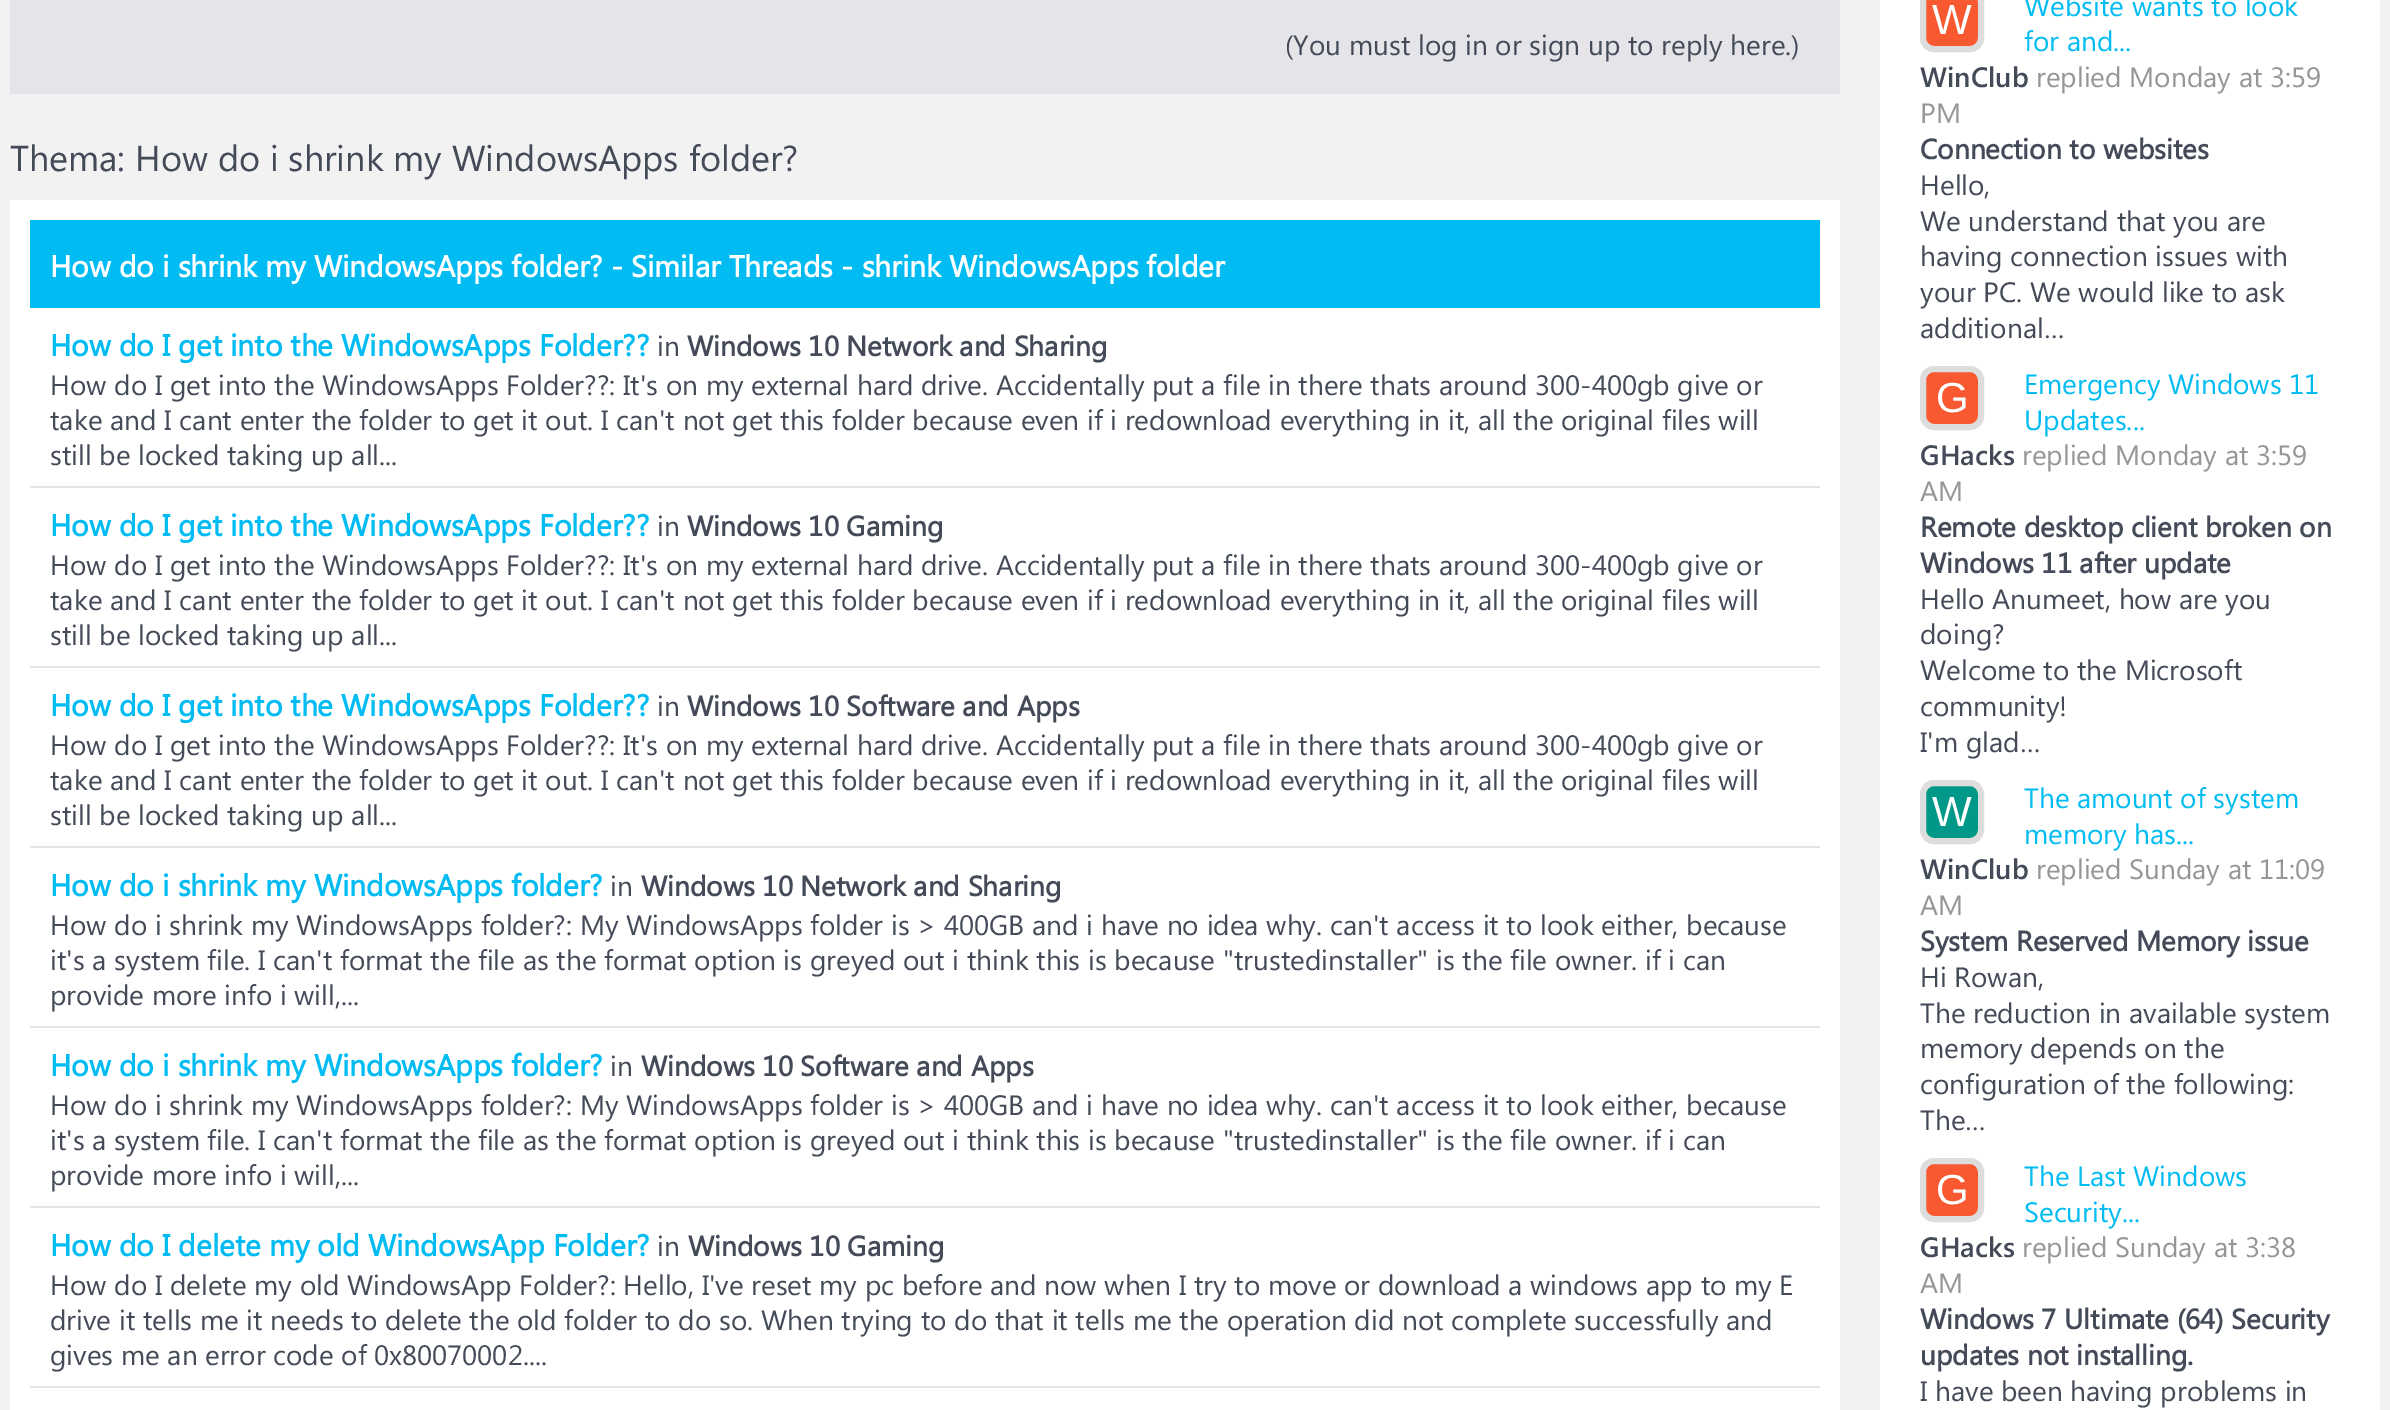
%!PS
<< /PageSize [2390 1410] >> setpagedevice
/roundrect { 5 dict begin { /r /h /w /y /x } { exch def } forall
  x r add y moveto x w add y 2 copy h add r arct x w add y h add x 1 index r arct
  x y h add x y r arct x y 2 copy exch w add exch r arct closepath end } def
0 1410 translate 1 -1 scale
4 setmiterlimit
0.949 0.949 0.953 setrgbcolor
0 0 2390 1410 rectfill
0.898 0.898 0.914 setrgbcolor
10 0 1830 94 rectfill
/SegoeUI-Regular [28 0 0 -28 0 0] selectfont
0.267 0.29 0.345 setrgbcolor
1285 55 moveto (\(You must log in or sign up to reply here.\)) show
/SegoeUI-Regular [36 0 0 -36 0 0] selectfont
10 171 moveto (Thema: How do i shrink my WindowsApps folder?) show
1 setgray
10 200 1830 1210 rectfill
0.004 0.737 0.953 setrgbcolor
30 220 1790 88 rectfill
/SegoeUI-Bold [30 0 0 -30 0 0] selectfont
1 setgray
50 277 moveto (How do i shrink my WindowsApps folder? - Similar Threads - shrink WindowsApps folder) show
0.898 0.898 0.914 setrgbcolor
30 486 1790 2 rectfill
0.004 0.737 0.953 setrgbcolor
50 356 moveto (How do I get into the WindowsApps Folder??) show
/SegoeUI-Regular [28 0 0 -28 0 0] selectfont
0.267 0.29 0.345 setrgbcolor
657 356 moveto (in) show
/SegoeUI-Bold [28 0 0 -28 0 0] selectfont
687 356 moveto (Windows 10 Network and Sharing) show
/SegoeUI-Regular [28 0 0 -28 0 0] selectfont
50 395 moveto (How do I get into the WindowsApps Folder??: It's on my external hard drive. Accidentally put a file in there thats around 300-400gb give or) show
50 430 moveto (take and I cant enter the folder to get it out. I can't not get this folder because even if i redownload everything in it, all the original files will) show
50 465 moveto (still be locked taking up all...) show
0.898 0.898 0.914 setrgbcolor
30 666 1790 2 rectfill
/SegoeUI-Bold [30 0 0 -30 0 0] selectfont
0.004 0.737 0.953 setrgbcolor
50 536 moveto (How do I get into the WindowsApps Folder??) show
/SegoeUI-Regular [28 0 0 -28 0 0] selectfont
0.267 0.29 0.345 setrgbcolor
657 536 moveto (in) show
/SegoeUI-Bold [28 0 0 -28 0 0] selectfont
687 536 moveto (Windows 10 Gaming) show
/SegoeUI-Regular [28 0 0 -28 0 0] selectfont
50 575 moveto (How do I get into the WindowsApps Folder??: It's on my external hard drive. Accidentally put a file in there thats around 300-400gb give or) show
50 610 moveto (take and I cant enter the folder to get it out. I can't not get this folder because even if i redownload everything in it, all the original files will) show
50 645 moveto (still be locked taking up all...) show
0.898 0.898 0.914 setrgbcolor
30 846 1790 2 rectfill
/SegoeUI-Bold [30 0 0 -30 0 0] selectfont
0.004 0.737 0.953 setrgbcolor
50 716 moveto (How do I get into the WindowsApps Folder??) show
/SegoeUI-Regular [28 0 0 -28 0 0] selectfont
0.267 0.29 0.345 setrgbcolor
657 716 moveto (in) show
/SegoeUI-Bold [28 0 0 -28 0 0] selectfont
687 716 moveto (Windows 10 Software and Apps) show
/SegoeUI-Regular [28 0 0 -28 0 0] selectfont
50 755 moveto (How do I get into the WindowsApps Folder??: It's on my external hard drive. Accidentally put a file in there thats around 300-400gb give or) show
50 790 moveto (take and I cant enter the folder to get it out. I can't not get this folder because even if i redownload everything in it, all the original files will) show
50 825 moveto (still be locked taking up all...) show
0.898 0.898 0.914 setrgbcolor
30 1026 1790 2 rectfill
/SegoeUI-Bold [30 0 0 -30 0 0] selectfont
0.004 0.737 0.953 setrgbcolor
50 896 moveto (How do i shrink my WindowsApps folder?) show
/SegoeUI-Regular [28 0 0 -28 0 0] selectfont
0.267 0.29 0.345 setrgbcolor
610 896 moveto (in) show
/SegoeUI-Bold [28 0 0 -28 0 0] selectfont
641 896 moveto (Windows 10 Network and Sharing) show
/SegoeUI-Regular [28 0 0 -28 0 0] selectfont
50 935 moveto (How do i shrink my WindowsApps folder?: My WindowsApps folder is > 400GB and i have no idea why. can't access it to look either, because) show
50 970 moveto (it's a system file. I can't format the file as the format option is greyed out i think this is because "trustedinstaller" is the file owner. if i can) show
50 1005 moveto (provide more info i will,...) show
0.898 0.898 0.914 setrgbcolor
30 1206 1790 2 rectfill
/SegoeUI-Bold [30 0 0 -30 0 0] selectfont
0.004 0.737 0.953 setrgbcolor
50 1076 moveto (How do i shrink my WindowsApps folder?) show
/SegoeUI-Regular [28 0 0 -28 0 0] selectfont
0.267 0.29 0.345 setrgbcolor
610 1076 moveto (in) show
/SegoeUI-Bold [28 0 0 -28 0 0] selectfont
641 1076 moveto (Windows 10 Software and Apps) show
/SegoeUI-Regular [28 0 0 -28 0 0] selectfont
50 1115 moveto (How do i shrink my WindowsApps folder?: My WindowsApps folder is > 400GB and i have no idea why. can't access it to look either, because) show
50 1150 moveto (it's a system file. I can't format the file as the format option is greyed out i think this is because "trustedinstaller" is the file owner. if i can) show
50 1185 moveto (provide more info i will,...) show
0.898 0.898 0.914 setrgbcolor
30 1386 1790 2 rectfill
/SegoeUI-Bold [30 0 0 -30 0 0] selectfont
0.004 0.737 0.953 setrgbcolor
50 1256 moveto (How do I delete my old WindowsApp Folder?) show
/SegoeUI-Regular [28 0 0 -28 0 0] selectfont
0.267 0.29 0.345 setrgbcolor
657 1256 moveto (in) show
/SegoeUI-Bold [28 0 0 -28 0 0] selectfont
688 1256 moveto (Windows 10 Gaming) show
/SegoeUI-Regular [28 0 0 -28 0 0] selectfont
50 1295 moveto (How do I delete my old WindowsApp Folder?: Hello, I've reset my pc before and now when I try to move or download a windows app to my E) show
50 1330 moveto (drive it tells me it needs to delete the old folder to do so. When trying to do that it tells me the operation did not complete successfully and) show
50 1365 moveto (gives me an error code of 0x80070002....) show
1 setgray
1880 0 500 1410 rectfill
0.973 0.349 0.192 setrgbcolor
1923 -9 58 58 11 roundrect gsave fill grestore
0.867 setgray
6 setlinewidth
stroke
/LiberationSans-Regular [42 0 0 -42 0 0] selectfont
1 setgray
1932 34 moveto (W) show
/SegoeUI-Regular [28 0 0 -28 0 0] selectfont
0.004 0.737 0.953 setrgbcolor
2024 16 moveto (Website wants to look) show
2024 51 moveto (for and...) show
/SegoeUI-SemiBold [28 0 0 -28 0 0] selectfont
0.267 0.29 0.345 setrgbcolor
1920 87 moveto (WinClub) show
/SegoeUI-Regular [28 0 0 -28 0 0] selectfont
0.588 setgray
2036 87 moveto (replied Monday at 3:59) show
1920 123 moveto (PM) show
/SegoeUI-Bold [28 0 0 -28 0 0] selectfont
0.267 0.29 0.345 setrgbcolor
1920 159 moveto (Connection to websites) show
/SegoeUI-Regular [28 0 0 -28 0 0] selectfont
1920 195 moveto (Hello,) show
1920 231 moveto (We understand that you are) show
1920 266 moveto (having connection issues with) show
1920 302 moveto (your PC. We would like to ask) show
1920 338 moveto (additional…) show
0.973 0.349 0.192 setrgbcolor
1923 369 58 58 11 roundrect gsave fill grestore
0.867 setgray
stroke
/LiberationSans-Regular [42 0 0 -42 0 0] selectfont
1 setgray
1936 412 moveto (G) show
/SegoeUI-Regular [28 0 0 -28 0 0] selectfont
0.004 0.737 0.953 setrgbcolor
2024 394 moveto (Emergency Windows 11) show
2024 430 moveto (Updates...) show
/SegoeUI-SemiBold [28 0 0 -28 0 0] selectfont
0.267 0.29 0.345 setrgbcolor
1920 465 moveto (GHacks) show
/SegoeUI-Regular [28 0 0 -28 0 0] selectfont
0.588 setgray
2022 465 moveto (replied Monday at 3:59) show
1920 501 moveto (AM) show
/SegoeUI-Bold [28 0 0 -28 0 0] selectfont
0.267 0.29 0.345 setrgbcolor
1920 537 moveto (Remote desktop client broken on) show
1920 573 moveto (Windows 11 after update) show
/SegoeUI-Regular [28 0 0 -28 0 0] selectfont
1920 609 moveto (Hello Anumeet, how are you) show
1920 644 moveto (doing?) show
1920 680 moveto (Welcome to the Microsoft) show
1920 716 moveto (community!) show
1920 752 moveto (I'm glad…) show
0 0.6 0.537 setrgbcolor
1923 783 58 58 11 roundrect gsave fill grestore
0.867 setgray
stroke
/LiberationSans-Regular [42 0 0 -42 0 0] selectfont
1 setgray
1932 826 moveto (W) show
/SegoeUI-Regular [28 0 0 -28 0 0] selectfont
0.004 0.737 0.953 setrgbcolor
2024 808 moveto (The amount of system) show
2024 844 moveto (memory has...) show
/SegoeUI-SemiBold [28 0 0 -28 0 0] selectfont
0.267 0.29 0.345 setrgbcolor
1920 879 moveto (WinClub) show
/SegoeUI-Regular [28 0 0 -28 0 0] selectfont
0.588 setgray
2036 879 moveto (replied Sunday at 11:09) show
1920 915 moveto (AM) show
/SegoeUI-Bold [28 0 0 -28 0 0] selectfont
0.267 0.29 0.345 setrgbcolor
1920 951 moveto (System Reserved Memory issue) show
/SegoeUI-Regular [28 0 0 -28 0 0] selectfont
1920 987 moveto (Hi Rowan,) show
1920 1023 moveto (The reduction in available system) show
1920 1058 moveto (memory depends on the) show
1920 1094 moveto (configuration of the following:) show
1920 1130 moveto (The…) show
0.973 0.349 0.192 setrgbcolor
1923 1161 58 58 11 roundrect gsave fill grestore
0.867 setgray
stroke
/LiberationSans-Regular [42 0 0 -42 0 0] selectfont
1 setgray
1936 1204 moveto (G) show
/SegoeUI-Regular [28 0 0 -28 0 0] selectfont
0.004 0.737 0.953 setrgbcolor
2024 1186 moveto (The Last Windows) show
2024 1222 moveto (Security...) show
/SegoeUI-SemiBold [28 0 0 -28 0 0] selectfont
0.267 0.29 0.345 setrgbcolor
1920 1257 moveto (GHacks) show
/SegoeUI-Regular [28 0 0 -28 0 0] selectfont
0.588 setgray
2022 1257 moveto (replied Sunday at 3:38) show
1920 1293 moveto (AM) show
/SegoeUI-Bold [28 0 0 -28 0 0] selectfont
0.267 0.29 0.345 setrgbcolor
1920 1329 moveto (Windows 7 Ultimate \(64\) Security) show
1920 1365 moveto (updates not installing.) show
/SegoeUI-Regular [28 0 0 -28 0 0] selectfont
1920 1401 moveto (I have been having problems in) show
showpage
